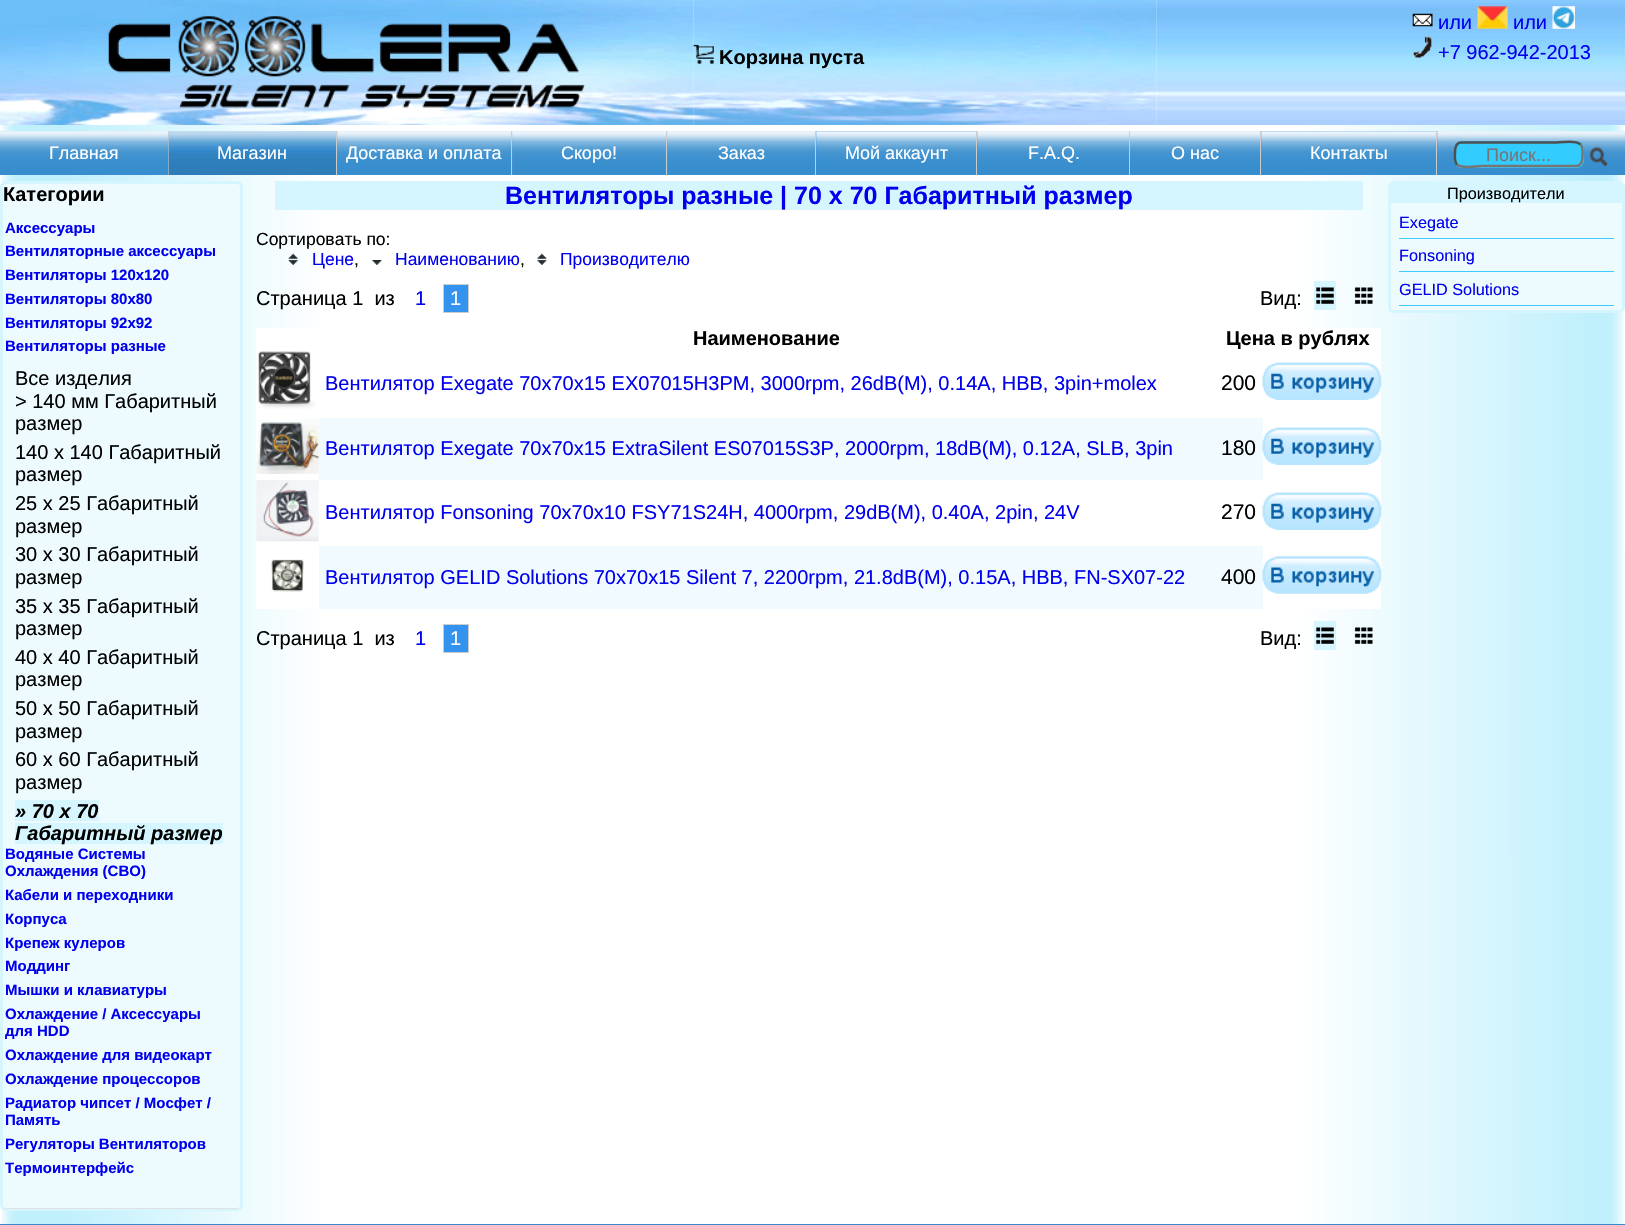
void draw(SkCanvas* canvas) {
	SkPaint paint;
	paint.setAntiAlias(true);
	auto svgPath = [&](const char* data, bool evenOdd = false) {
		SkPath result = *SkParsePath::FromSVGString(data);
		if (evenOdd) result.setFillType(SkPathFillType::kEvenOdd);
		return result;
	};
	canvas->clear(0xffffffff);
	{
		const SkColor colors[] = {0xffffffff, 0xffcaf2fc, 0xffcaf2fc, 0xfff2fcfe, 0xfffbfeff, 0xffffffff, 0xffffffff, 0xfffbfeff, 0xfff0fbfe, 0xffcaf2fc, 0xffcaf2fc, 0xffffffff};
		const float stops[] = {0, 0.01, 0.04, 0.16, 0.19, 0.2, 0.8, 0.81, 0.85, 0.98, 0.99, 1};
		const SkPoint ends[] = {{0, 613}, {1625, 612}};
		paint.setShader(SkGradientShader::MakeLinear(ends, colors, stops, 12, SkTileMode::kClamp));
		paint.setAlpha(255);
	}
	canvas->drawRect(SkRect::MakeXYWH(0, 125, 1625, 1099), paint);
	{
		const SkColor colors[] = {0x00bdeffb, 0xccbdeffb, 0xccbdeffb, 0xcceffbfe, 0xfffbfeff, 0xffffffff, 0xffffffff, 0xfffbfeff, 0xccecfafe, 0xccbdeffb, 0xccbdeffb, 0x00bdeffb};
		const float stops[] = {0, 0.01, 0.04, 0.16, 0.19, 0.2, 0.8, 0.81, 0.85, 0.98, 0.99, 1};
		const SkPoint ends[] = {{0, 669}, {1625, 669}};
		paint.setShader(SkGradientShader::MakeLinear(ends, colors, stops, 12, SkTileMode::kClamp));
		paint.setAlpha(255);
	}
	canvas->drawRect(SkRect::MakeXYWH(1, 0, 1623, 1224), paint);
	canvas->drawImageRect(SkImages::DeferredFromEncodedData(SkData::MakeFromFileName("img1.png")), SkRect::MakeXYWH(0, 0, 694, 125), SkSamplingOptions());
	canvas->drawImageRect(SkImages::DeferredFromEncodedData(SkData::MakeFromFileName("img4.png")), SkRect::MakeXYWH(1156, 0, 469, 125), SkSamplingOptions());
	canvas->drawImageRect(SkImages::DeferredFromEncodedData(SkData::MakeFromFileName("img2.png")), SkRect::MakeXYWH(693, 0, 464, 125), SkSamplingOptions());
	canvas->drawImageRect(SkImages::DeferredFromEncodedData(SkData::MakeFromFileName("img3.png")), SkRect::MakeXYWH(693, 44, 21, 20), SkSamplingOptions());
	SkFont f1(fontMgr->matchFamilyStyle("Liberation Sans", SkFontStyle::Bold()), 20);
	f1.setSubpixel(true);
	paint.setShader(nullptr);
	paint.setColor(0xff000000);
	canvas->drawString("Kорзина пуста", 719, 64, f1, paint);
	canvas->drawImageRect(SkImages::DeferredFromEncodedData(SkData::MakeFromFileName("img5.png")), SkRect::MakeXYWH(1412, 13, 21, 14), SkSamplingOptions());
	SkFont f2(fontMgr->matchFamilyStyle("Liberation Sans", SkFontStyle::Normal()), 20);
	f2.setSubpixel(true);
	paint.setColor(0xff0000ee);
	canvas->drawString("или", 1438, 29, f2, paint);
	canvas->drawImageRect(SkImages::DeferredFromEncodedData(SkData::MakeFromFileName("img6.png")), SkRect::MakeXYWH(1477, 6, 31, 23), SkSamplingOptions());
	canvas->drawString("или", 1513, 29, f2, paint);
	canvas->drawImageRect(SkImages::DeferredFromEncodedData(SkData::MakeFromFileName("img7.png")), SkRect::MakeXYWH(1552, 6, 23, 23), SkSamplingOptions());
	canvas->drawImageRect(SkImages::DeferredFromEncodedData(SkData::MakeFromFileName("img8.png")), SkRect::MakeXYWH(1413, 36, 19, 22), SkSamplingOptions());
	canvas->drawString("+7 962-942-2013", 1438, 59, f2, paint);
	canvas->drawImageRect(SkImages::DeferredFromEncodedData(SkData::MakeFromFileName("img9.png")), SkRect::MakeXYWH(0, 131, 168, 1), SkSamplingOptions());
	canvas->drawImageRect(SkImages::DeferredFromEncodedData(SkData::MakeFromFileName("img10.png")), SkRect::MakeXYWH(0, 131, 168, 44), SkSamplingOptions());
	paint.setColor(0xffcccccc);
	canvas->drawRect(SkRect::MakeXYWH(168, 131, 1, 44), paint);
	SkFont f3(fontMgr->matchFamilyStyle("Liberation Sans", SkFontStyle::Normal()), 18);
	f3.setSubpixel(true);
	paint.setColor(0xffffffff);
	canvas->drawString("Главная", 49, 159, f3, paint);
	canvas->drawImageRect(SkImages::DeferredFromEncodedData(SkData::MakeFromFileName("img11.png")), SkRect::MakeXYWH(168, 131, 170, 44), SkSamplingOptions());
	canvas->drawImageRect(SkImages::DeferredFromEncodedData(SkData::MakeFromFileName("img12.png")), SkRect::MakeXYWH(168, 131, 170, 44), SkSamplingOptions());
	paint.setColor(0xffcccccc);
	canvas->drawRect(SkRect::MakeXYWH(336, 131, 1, 44), paint);
	paint.setColor(0xffffffff);
	canvas->drawString("Магазин", 217, 159, f3, paint);
	canvas->drawImageRect(SkImages::DeferredFromEncodedData(SkData::MakeFromFileName("img13.png")), SkRect::MakeXYWH(337, 131, 176, 44), SkSamplingOptions());
	canvas->drawImageRect(SkImages::DeferredFromEncodedData(SkData::MakeFromFileName("img14.png")), SkRect::MakeXYWH(337, 131, 176, 44), SkSamplingOptions());
	paint.setColor(0xffcccccc);
	canvas->drawRect(SkRect::MakeXYWH(511, 131, 1, 44), paint);
	paint.setColor(0xffffffff);
	canvas->drawString("Доставка и оплата", 346, 159, f3, paint);
	canvas->drawImageRect(SkImages::DeferredFromEncodedData(SkData::MakeFromFileName("img15.png")), SkRect::MakeXYWH(512, 131, 156, 44), SkSamplingOptions());
	canvas->drawImageRect(SkImages::DeferredFromEncodedData(SkData::MakeFromFileName("img16.png")), SkRect::MakeXYWH(512, 131, 156, 44), SkSamplingOptions());
	paint.setColor(0xffcccccc);
	canvas->drawRect(SkRect::MakeXYWH(666, 131, 1, 44), paint);
	paint.setColor(0xffffffff);
	canvas->drawString("Скоро!", 561, 159, f3, paint);
	canvas->drawImageRect(SkImages::DeferredFromEncodedData(SkData::MakeFromFileName("img17.png")), SkRect::MakeXYWH(667, 131, 148, 44), SkSamplingOptions());
	canvas->drawImageRect(SkImages::DeferredFromEncodedData(SkData::MakeFromFileName("img18.png")), SkRect::MakeXYWH(667, 131, 148, 44), SkSamplingOptions());
	paint.setColor(0xffcccccc);
	canvas->drawRect(SkRect::MakeXYWH(815, 131, 1, 44), paint);
	paint.setColor(0xffffffff);
	canvas->drawString("Заказ", 718, 159, f3, paint);
	paint.setColor(0xff3393ee);
	canvas->drawRect(SkRect::MakeXYWH(816, 131, 162, 44), paint);
	canvas->drawImageRect(SkImages::DeferredFromEncodedData(SkData::MakeFromFileName("img19.png")), SkRect::MakeXYWH(816, 131, 162, 44), SkSamplingOptions());
	paint.setColor(0xffcccccc);
	canvas->drawRect(SkRect::MakeXYWH(976, 131, 1, 44), paint);
	paint.setColor(0xffffffff);
	canvas->drawString("Мой аккаунт", 845, 159, f3, paint);
	canvas->drawImageRect(SkImages::DeferredFromEncodedData(SkData::MakeFromFileName("img20.png")), SkRect::MakeXYWH(977, 131, 152, 44), SkSamplingOptions());
	canvas->drawImageRect(SkImages::DeferredFromEncodedData(SkData::MakeFromFileName("img21.png")), SkRect::MakeXYWH(977, 131, 152, 44), SkSamplingOptions());
	paint.setColor(0xffcccccc);
	canvas->drawRect(SkRect::MakeXYWH(1129, 131, 1, 44), paint);
	paint.setColor(0xffffffff);
	canvas->drawString("F.A.Q.", 1028, 159, f3, paint);
	canvas->drawImageRect(SkImages::DeferredFromEncodedData(SkData::MakeFromFileName("img22.png")), SkRect::MakeXYWH(1130, 131, 130, 1), SkSamplingOptions());
	canvas->drawImageRect(SkImages::DeferredFromEncodedData(SkData::MakeFromFileName("img23.png")), SkRect::MakeXYWH(1130, 131, 130, 44), SkSamplingOptions());
	paint.setColor(0xffcccccc);
	canvas->drawRect(SkRect::MakeXYWH(1260, 131, 1, 44), paint);
	paint.setColor(0xffffffff);
	canvas->drawString("О нас", 1171, 159, f3, paint);
	paint.setColor(0xff3393ee);
	canvas->drawRect(SkRect::MakeXYWH(1261, 131, 177, 44), paint);
	canvas->drawImageRect(SkImages::DeferredFromEncodedData(SkData::MakeFromFileName("img24.png")), SkRect::MakeXYWH(1261, 131, 177, 44), SkSamplingOptions());
	paint.setColor(0xffcccccc);
	canvas->drawRect(SkRect::MakeXYWH(1436, 131, 1, 44), paint);
	paint.setColor(0xffffffff);
	canvas->drawString("Контакты", 1310, 159, f3, paint);
	canvas->drawImageRect(SkImages::DeferredFromEncodedData(SkData::MakeFromFileName("img25.png")), SkRect::MakeXYWH(1437, 131, 188, 44), SkSamplingOptions());
	canvas->drawImageRect(SkImages::DeferredFromEncodedData(SkData::MakeFromFileName("img26.png")), SkRect::MakeXYWH(1437, 131, 188, 44), SkSamplingOptions());
	paint.setColor(0xff33ccff);
	canvas->drawRoundRect(SkRect::MakeXYWH(1454, 141, 130, 27), 8, 8, paint);
	paint.setStroke(true);
	paint.setStrokeWidth(2.5);
	paint.setColor(0xff767676);
	canvas->drawPath(svgPath("M1580.5 144.5C1583.5 147.5 1582.5 152.5 1582.5 156C1582.5 160.5 1582 166 1576 166H1480.5C1479 166 1461.5 169 1457 164.5"), paint);
	paint.setColor(0xff4f4f4f);
	canvas->drawPath(svgPath("M1457 164.5C1454 161.5 1455 156 1455 152.5C1455 148 1455.5 142.5 1461 142.5H1557C1558.5 142.5 1576 139.5 1580.5 144.5"), paint);
	paint.setStroke(false);
	paint.setColor(0xff757575);
	canvas->drawString("Поиск...", 1486, 161, f3, paint);
	canvas->drawImageRect(SkImages::DeferredFromEncodedData(SkData::MakeFromFileName("img27.png")), SkRect::MakeXYWH(1589, 146, 19, 21), SkSamplingOptions());
	paint.setColor(0xffeefbfe);
	canvas->drawRoundRect(SkRect::MakeXYWH(1.5, 182.5, 240, 1027), 4.5, 4.5, paint);
	paint.setStroke(true);
	paint.setStrokeWidth(3);
	paint.setColor(0xffd5f6fe);
	canvas->drawRoundRect(SkRect::MakeXYWH(1.5, 182.5, 240, 1027), 4.5, 4.5, paint);
	paint.setStroke(false);
	paint.setColor(0xff000000);
	canvas->drawString("Категории", 3, 201, f1, paint);
	canvas->save();
	canvas->clipPath(svgPath("M7 184H236C238 184 240 186 240 188V1205C240 1207 238 1209 236 1209H7C5 1209 3 1207 3 1205V188C3 186 5 184 7 184Z"), true);
	paint.setColor(0xffe1e1e1);
	canvas->drawRect(SkRect::MakeXYWH(3, 1208, 237, 1), paint);
	canvas->restore();
	SkFont f4(fontMgr->matchFamilyStyle("Liberation Sans", SkFontStyle::Bold()), 15);
	f4.setSubpixel(true);
	paint.setColor(0xff0000ee);
	canvas->drawString("Аксессуары", 5, 233, f4, paint);
	canvas->drawString("Вентиляторные аксессуары", 5, 256, f4, paint);
	canvas->drawString("Вентиляторы 120х120", 5, 280, f4, paint);
	canvas->drawString("Вентиляторы 80х80", 5, 304, f4, paint);
	canvas->drawString("Вентиляторы 92х92", 5, 328, f4, paint);
	canvas->drawString("Вентиляторы разные", 5, 351, f4, paint);
	paint.setColor(0xff000000);
	canvas->drawString("Все изделия", 15, 385, f2, paint);
	canvas->drawString("> 140 мм Габаритный", 15, 408, f2, paint);
	canvas->drawString("размер", 15, 430, f2, paint);
	canvas->drawString("140 x 140 Габаритный", 15, 459, f2, paint);
	canvas->drawString("размер", 15, 481, f2, paint);
	canvas->drawString("25 x 25 Габаритный", 15, 510, f2, paint);
	canvas->drawString("размер", 15, 533, f2, paint);
	canvas->drawString("30 x 30 Габаритный", 15, 561, f2, paint);
	canvas->drawString("размер", 15, 584, f2, paint);
	canvas->drawString("35 x 35 Габаритный", 15, 613, f2, paint);
	canvas->drawString("размер", 15, 635, f2, paint);
	canvas->drawString("40 x 40 Габаритный", 15, 664, f2, paint);
	canvas->drawString("размер", 15, 686, f2, paint);
	canvas->drawString("50 x 50 Габаритный", 15, 715, f2, paint);
	canvas->drawString("размер", 15, 738, f2, paint);
	canvas->drawString("60 x 60 Габаритный", 15, 766, f2, paint);
	canvas->drawString("размер", 15, 789, f2, paint);
	paint.setColor(0xffd5f6fe);
	canvas->drawRect(SkRect::MakeXYWH(15, 800, 84, 21), paint);
	SkFont f5(fontMgr->matchFamilyStyle("Liberation Sans", SkFontStyle::BoldItalic()), 20);
	f5.setSubpixel(true);
	paint.setColor(0xff000000);
	canvas->drawString("» 70 x 70", 15, 818, f5, paint);
	paint.setColor(0xffd5f6fe);
	canvas->drawRect(SkRect::MakeXYWH(15, 823, 208, 21), paint);
	paint.setColor(0xff000000);
	canvas->drawString("Габаритный размер", 15, 840, f5, paint);
	paint.setColor(0xff0000ee);
	canvas->drawString("Водяные Системы", 5, 859, f4, paint);
	canvas->drawString("Охлаждения (СВО)", 5, 876, f4, paint);
	canvas->drawString("Кабели и переходники", 5, 900, f4, paint);
	canvas->drawString("Корпуса", 5, 924, f4, paint);
	canvas->drawString("Крепеж кулеров", 5, 948, f4, paint);
	canvas->drawString("Моддинг", 5, 971, f4, paint);
	canvas->drawString("Мышки и клавиатуры", 5, 995, f4, paint);
	canvas->drawString("Охлаждение / Аксессуары", 5, 1019, f4, paint);
	canvas->drawString("для HDD", 5, 1036, f4, paint);
	canvas->drawString("Охлаждение для видеокарт", 5, 1060, f4, paint);
	canvas->drawString("Охлаждение процессоров", 5, 1084, f4, paint);
	canvas->drawString("Радиатор чипсет / Мосфет /", 5, 1108, f4, paint);
	canvas->drawString("Память", 5, 1125, f4, paint);
	canvas->drawString("Регуляторы Вентиляторов", 5, 1149, f4, paint);
	canvas->drawString("Термоинтерфейс", 5, 1173, f4, paint);
	paint.setColor(0xffd5f6fe);
	canvas->drawRect(SkRect::MakeXYWH(275, 181, 1088, 29), paint);
	SkFont f6(fontMgr->matchFamilyStyle("Liberation Sans", SkFontStyle::Bold()), 25);
	f6.setSubpixel(true);
	paint.setColor(0xff0000ee);
	canvas->drawString("Вентиляторы разные | 70 x 70 Габаритный размер", 505, 204, f6, paint);
	SkFont f7(fontMgr->matchFamilyStyle("Liberation Sans", SkFontStyle::Normal()), 17.5);
	f7.setSubpixel(true);
	paint.setColor(0xff000000);
	canvas->drawString("Сортировать по:", 256, 245, f7, paint);
	canvas->drawImageRect(SkImages::DeferredFromEncodedData(SkData::MakeFromFileName("img28.png")), SkRect::MakeXYWH(288, 253, 10, 12), SkSamplingOptions());
	paint.setColor(0xff0000ee);
	canvas->drawString("Цене", 312, 265, f7, paint);
	canvas->drawImageRect(SkImages::DeferredFromEncodedData(SkData::MakeFromFileName("img29.png")), SkRect::MakeXYWH(372, 260, 10, 5), SkSamplingOptions());
	canvas->drawString("Наименованию", 395, 265, f7, paint);
	canvas->drawImageRect(SkImages::DeferredFromEncodedData(SkData::MakeFromFileName("img30.png")), SkRect::MakeXYWH(537, 253, 10, 12), SkSamplingOptions());
	canvas->drawString("Производителю", 560, 265, f7, paint);
	paint.setColor(0xff000000);
	canvas->drawString(",", 354, 265, f7, paint);
	canvas->drawString(",", 520, 265, f7, paint);
	canvas->drawString("Страница 1  из", 256, 305, f2, paint);
	paint.setColor(0xff0000ee);
	canvas->drawString("1", 415, 305, f2, paint);
	paint.setColor(0xff3393ee);
	canvas->drawRect(SkRect::MakeXYWH(443.5, 284.5, 25, 28), paint);
	paint.setStroke(true);
	paint.setStrokeWidth(1);
	paint.setColor(0xffcccccc);
	canvas->drawRect(SkRect::MakeXYWH(443.5, 284.5, 25, 28), paint);
	paint.setStroke(false);
	paint.setColor(0xffffffff);
	canvas->drawString("1", 450, 305, f2, paint);
	paint.setColor(0xffd5f6fe);
	canvas->drawRect(SkRect::MakeXYWH(1314, 281, 22, 29), paint);
	paint.setColor(0xff000000);
	canvas->drawString("Вид:", 1260, 305, f2, paint);
	canvas->drawImageRect(SkImages::DeferredFromEncodedData(SkData::MakeFromFileName("img31.png")), SkRect::MakeXYWH(1316, 286, 18, 18), SkSamplingOptions());
	canvas->drawImageRect(SkImages::DeferredFromEncodedData(SkData::MakeFromFileName("img32.png")), SkRect::MakeXYWH(1354, 287, 19, 17), SkSamplingOptions());
	paint.setColor(0xffffffff);
	canvas->drawRect(SkRect::MakeXYWH(256, 328, 1125, 281), paint);
	paint.setColor(0xff000000);
	canvas->drawString("Наименование", 693, 345, f1, paint);
	canvas->drawString("Цена в рублях", 1226, 345, f1, paint);
	canvas->drawImageRect(SkImages::DeferredFromEncodedData(SkData::MakeFromFileName("img33.png")), SkRect::MakeXYWH(258, 351, 58, 58), SkSamplingOptions());
	paint.setColor(0xff0000ee);
	canvas->drawString("Вентилятор Exegate 70x70x15 EX07015H3PM, 3000rpm, 26dB(M), 0.14A, HBB, 3pin+molex", 325, 390, f2, paint);
	SkFont f8(fontMgr->matchFamilyStyle("Liberation Sans", SkFontStyle::Normal()), 21);
	f8.setSubpixel(true);
	paint.setColor(0xff000000);
	canvas->drawString("200", 1221, 390, f8, paint);
	canvas->drawImageRect(SkImages::DeferredFromEncodedData(SkData::MakeFromFileName("img34.png")), SkRect::MakeXYWH(1262, 362, 120, 38), SkSamplingOptions());
	canvas->drawImageRect(SkImages::DeferredFromEncodedData(SkData::MakeFromFileName("img35.png")), SkRect::MakeXYWH(256, 419, 63, 55), SkSamplingOptions());
	paint.setColor(0xfff1faff);
	canvas->drawRect(SkRect::MakeXYWH(319, 418, 944, 62), paint);
	paint.setColor(0xff0000ee);
	canvas->drawString("Вентилятор Exegate 70x70x15 ExtraSilent ES07015S3P, 2000rpm, 18dB(M), 0.12A, SLB, 3pin", 325, 455, f2, paint);
	paint.setColor(0xff000000);
	canvas->drawString("180", 1221, 455, f8, paint);
	canvas->drawImageRect(SkImages::DeferredFromEncodedData(SkData::MakeFromFileName("img36.png")), SkRect::MakeXYWH(1262, 427, 120, 38), SkSamplingOptions());
	canvas->drawImageRect(SkImages::DeferredFromEncodedData(SkData::MakeFromFileName("img37.png")), SkRect::MakeXYWH(256, 480, 63, 62), SkSamplingOptions());
	paint.setColor(0xff0000ee);
	canvas->drawString("Вентилятор Fonsoning 70x70x10 FSY71S24H, 4000rpm, 29dB(M), 0.40A, 2pin, 24V", 325, 519, f2, paint);
	paint.setColor(0xff000000);
	canvas->drawString("270", 1221, 519, f8, paint);
	canvas->drawImageRect(SkImages::DeferredFromEncodedData(SkData::MakeFromFileName("img34.png")), SkRect::MakeXYWH(1262, 492, 120, 38), SkSamplingOptions());
	canvas->drawImageRect(SkImages::DeferredFromEncodedData(SkData::MakeFromFileName("img38.png")), SkRect::MakeXYWH(271, 559, 33, 33), SkSamplingOptions());
	paint.setColor(0xfff1faff);
	canvas->drawRect(SkRect::MakeXYWH(319, 546, 944, 63), paint);
	paint.setColor(0xff0000ee);
	canvas->drawString("Вентилятор GELID Solutions 70x70x15 Silent 7, 2200rpm, 21.8dB(M), 0.15A, HBB, FN-SX07-22", 325, 584, f2, paint);
	paint.setColor(0xff000000);
	canvas->drawString("400", 1221, 584, f8, paint);
	canvas->drawImageRect(SkImages::DeferredFromEncodedData(SkData::MakeFromFileName("img39.png")), SkRect::MakeXYWH(1262, 556, 120, 38), SkSamplingOptions());
	canvas->drawString("Страница 1  из", 256, 645, f2, paint);
	paint.setColor(0xff0000ee);
	canvas->drawString("1", 415, 645, f2, paint);
	paint.setColor(0xff3393ee);
	canvas->drawRect(SkRect::MakeXYWH(443.5, 624.5, 25, 28), paint);
	paint.setStroke(true);
	paint.setColor(0xffcccccc);
	canvas->drawRect(SkRect::MakeXYWH(443.5, 624.5, 25, 28), paint);
	paint.setStroke(false);
	paint.setColor(0xffffffff);
	canvas->drawString("1", 450, 645, f2, paint);
	paint.setColor(0xffd5f6fe);
	canvas->drawRect(SkRect::MakeXYWH(1314, 621, 22, 29), paint);
	paint.setColor(0xff000000);
	canvas->drawString("Вид:", 1260, 645, f2, paint);
	canvas->drawImageRect(SkImages::DeferredFromEncodedData(SkData::MakeFromFileName("img40.png")), SkRect::MakeXYWH(1316, 626, 18, 18), SkSamplingOptions());
	canvas->drawImageRect(SkImages::DeferredFromEncodedData(SkData::MakeFromFileName("img41.png")), SkRect::MakeXYWH(1354, 627, 19, 17), SkSamplingOptions());
	paint.setColor(0xffeefbfe);
	canvas->drawRoundRect(SkRect::MakeXYWH(1389.5, 182.5, 234, 129), 4.5, 4.5, paint);
	paint.setStroke(true);
	paint.setStrokeWidth(3);
	paint.setColor(0xffd5f6fe);
	canvas->drawRoundRect(SkRect::MakeXYWH(1389.5, 182.5, 234, 129), 4.5, 4.5, paint);
	paint.setStroke(false);
	canvas->drawRect(SkRect::MakeXYWH(1391, 184, 231, 19), paint);
	SkFont f9(fontMgr->matchFamilyStyle("Liberation Sans", SkFontStyle::Normal()), 16.25);
	f9.setSubpixel(true);
	paint.setColor(0xff000000);
	canvas->drawString("Производители", 1447, 199, f9, paint);
	paint.setColor(0xff3ecbfe);
	canvas->drawRect(SkRect::MakeXYWH(1399, 238, 215, 1), paint);
	paint.setColor(0xff0000ee);
	canvas->drawString("Exegate", 1399, 228, f9, paint);
	paint.setColor(0xff3ecbfe);
	canvas->drawRect(SkRect::MakeXYWH(1399, 271, 215, 1), paint);
	paint.setColor(0xff0000ee);
	canvas->drawString("Fonsoning", 1399, 261, f9, paint);
	paint.setColor(0xff3ecbfe);
	canvas->drawRect(SkRect::MakeXYWH(1399, 305, 215, 1), paint);
	paint.setColor(0xff0000ee);
	canvas->drawString("GELID Solutions", 1399, 295, f9, paint);
	paint.setColor(0xff378dcd);
	canvas->drawRect(SkRect::MakeXYWH(0, 1224, 1625, 1), paint);
}
